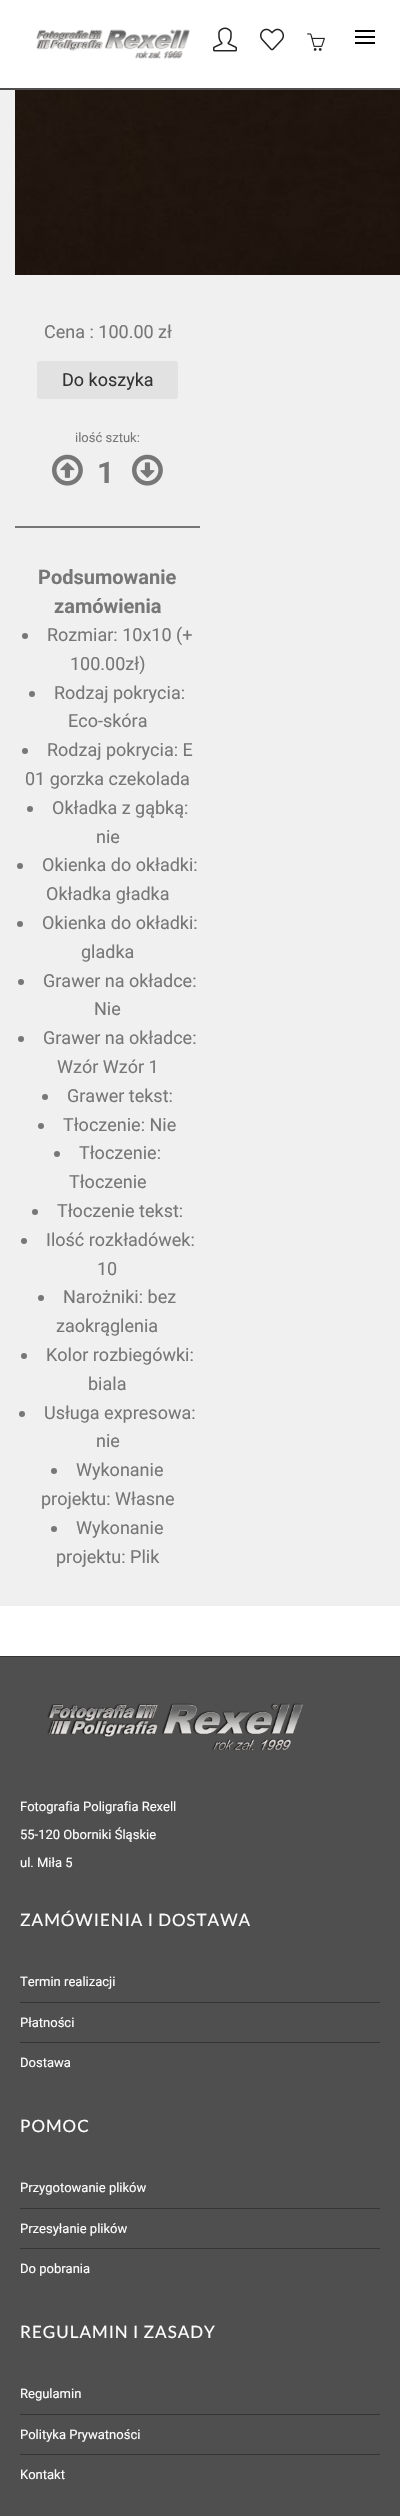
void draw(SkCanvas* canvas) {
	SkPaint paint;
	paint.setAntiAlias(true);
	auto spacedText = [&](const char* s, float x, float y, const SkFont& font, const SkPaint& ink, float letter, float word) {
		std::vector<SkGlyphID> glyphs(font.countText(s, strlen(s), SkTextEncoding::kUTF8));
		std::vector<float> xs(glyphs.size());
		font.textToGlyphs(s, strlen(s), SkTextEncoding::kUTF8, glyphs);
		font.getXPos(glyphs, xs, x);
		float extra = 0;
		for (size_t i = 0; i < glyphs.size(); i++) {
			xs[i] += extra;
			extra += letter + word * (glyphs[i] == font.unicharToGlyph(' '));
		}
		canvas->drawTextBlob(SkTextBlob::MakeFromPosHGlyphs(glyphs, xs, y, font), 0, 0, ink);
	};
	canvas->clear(0xffffffff);
	paint.setColor(0xff4f4f4f);
	canvas->drawRect(SkRect::MakeXYWH(0, 88, 400, 2), paint);
	canvas->drawImageRect(SkImages::DeferredFromEncodedData(SkData::MakeFromFileName("img1.png")), SkRect::MakeXYWH(36, 29, 154, 30), SkSamplingOptions());
	canvas->drawImageRect(SkImages::DeferredFromEncodedData(SkData::MakeFromFileName("img2.png")), SkRect::MakeXYWH(213, 27, 24, 25), SkSamplingOptions());
	canvas->drawImageRect(SkImages::DeferredFromEncodedData(SkData::MakeFromFileName("img3.png")), SkRect::MakeXYWH(260, 28, 24, 23), SkSamplingOptions());
	canvas->drawImageRect(SkImages::DeferredFromEncodedData(SkData::MakeFromFileName("img4.png")), SkRect::MakeXYWH(307, 33, 18, 18), SkSamplingOptions());
	paint.setColor(0xff000000);
	canvas->drawRect(SkRect::MakeXYWH(355, 36, 20, 2), paint);
	canvas->drawRect(SkRect::MakeXYWH(355, 30, 20, 2), paint);
	canvas->drawRect(SkRect::MakeXYWH(355, 42, 20, 2), paint);
	paint.setColor(0xfff0f0f0);
	canvas->drawRect(SkRect::MakeXYWH(0, 90, 400, 1516), paint);
	canvas->drawImageRect(SkImages::DeferredFromEncodedData(SkData::MakeFromFileName("img5.png")), SkRect::MakeXYWH(15, 90, 385, 185), SkSamplingOptions());
	SkFont f1(fontMgr->matchFamilyStyle("Roboto", SkFontStyle::Normal()), 18);
	f1.setSubpixel(true);
	paint.setColor(0xff777777);
	canvas->drawString("Cena : 100.00 zł", 44, 338, f1, paint);
	paint.setColor(0xffe2e2e2);
	canvas->drawRoundRect(SkRect::MakeXYWH(37, 361, 141, 38), 3, 3, paint);
	paint.setColor(0xff333333);
	canvas->drawString("Do koszyka", 62, 386, f1, paint);
	SkFont f2(fontMgr->matchFamilyStyle("Roboto", SkFontStyle::Normal()), 13);
	f2.setSubpixel(true);
	paint.setColor(0xff777777);
	canvas->drawString("ilość sztuk:", 75, 442, f2, paint);
	canvas->drawImageRect(SkImages::DeferredFromEncodedData(SkData::MakeFromFileName("img6.png")), SkRect::MakeXYWH(52, 454, 31, 32), SkSamplingOptions());
	SkFont f3(fontMgr->matchFamilyStyle("Roboto", SkFontStyle::Bold()), 30);
	f3.setSubpixel(true);
	canvas->drawString("1", 97, 483, f3, paint);
	canvas->drawImageRect(SkImages::DeferredFromEncodedData(SkData::MakeFromFileName("img7.png")), SkRect::MakeXYWH(132, 454, 31, 32), SkSamplingOptions());
	canvas->drawRect(SkRect::MakeXYWH(15, 526, 185, 2), paint);
	SkFont f4(fontMgr->matchFamilyStyle("Roboto", SkFontStyle::Bold()), 20);
	f4.setSubpixel(true);
	canvas->drawString("Podsumowanie", 38, 584, f4, paint);
	canvas->drawString("zamówienia", 54, 613, f4, paint);
	canvas->drawCircle(25, 636, 3, paint);
	canvas->drawString("Rozmiar: 10x10 (+", 47, 641, f1, paint);
	canvas->drawString("100.00zł)", 70, 670, f1, paint);
	canvas->drawCircle(32, 694, 3, paint);
	canvas->drawString("Rodzaj pokrycia:", 54, 699, f1, paint);
	canvas->drawString("Eco-skóra", 68, 727, f1, paint);
	canvas->drawCircle(25, 751, 3, paint);
	canvas->drawString("Rodzaj pokrycia: E", 47, 756, f1, paint);
	canvas->drawString("01 gorzka czekolada", 25, 785, f1, paint);
	canvas->drawCircle(30, 809, 3, paint);
	canvas->drawString("Okładka z gąbką:", 52, 814, f1, paint);
	canvas->drawString("nie", 96, 843, f1, paint);
	canvas->drawCircle(20, 866, 3, paint);
	canvas->drawString("Okienka do okładki:", 42, 871, f1, paint);
	canvas->drawString("Okładka gładka", 46, 900, f1, paint);
	canvas->drawCircle(20, 924, 3, paint);
	canvas->drawString("Okienka do okładki:", 42, 929, f1, paint);
	canvas->drawString("gladka", 81, 958, f1, paint);
	canvas->drawCircle(21, 982, 3, paint);
	canvas->drawString("Grawer na okładce:", 43, 987, f1, paint);
	canvas->drawString("Nie", 94, 1015, f1, paint);
	canvas->drawCircle(21, 1039, 3, paint);
	canvas->drawString("Grawer na okładce:", 43, 1044, f1, paint);
	canvas->drawString("Wzór Wzór 1", 57, 1073, f1, paint);
	canvas->drawCircle(45, 1097, 3, paint);
	canvas->drawString("Grawer tekst:", 67, 1102, f1, paint);
	canvas->drawCircle(41, 1126, 3, paint);
	canvas->drawString("Tłoczenie: Nie", 63, 1131, f1, paint);
	canvas->drawCircle(57, 1154, 3, paint);
	canvas->drawString("Tłoczenie:", 79, 1159, f1, paint);
	canvas->drawString("Tłoczenie", 69, 1188, f1, paint);
	canvas->drawCircle(35, 1212, 3, paint);
	canvas->drawString("Tłoczenie tekst:", 57, 1217, f1, paint);
	canvas->drawCircle(24, 1241, 3, paint);
	canvas->drawString("Ilość rozkładówek:", 46, 1246, f1, paint);
	canvas->drawString("10", 97, 1275, f1, paint);
	canvas->drawCircle(41, 1298, 3, paint);
	canvas->drawString("Narożniki: bez", 63, 1303, f1, paint);
	canvas->drawString("zaokrąglenia", 56, 1332, f1, paint);
	canvas->drawCircle(24, 1356, 3, paint);
	canvas->drawString("Kolor rozbiegówki:", 46, 1361, f1, paint);
	canvas->drawString("biala", 88, 1390, f1, paint);
	canvas->drawCircle(22, 1414, 3, paint);
	canvas->drawString("Usługa expresowa:", 44, 1419, f1, paint);
	canvas->drawString("nie", 96, 1447, f1, paint);
	canvas->drawCircle(54, 1471, 3, paint);
	canvas->drawString("Wykonanie", 76, 1476, f1, paint);
	canvas->drawString("projektu: Własne", 41, 1505, f1, paint);
	canvas->drawCircle(54, 1529, 3, paint);
	canvas->drawString("Wykonanie", 76, 1534, f1, paint);
	canvas->drawString("projektu: Plik", 56, 1563, f1, paint);
	paint.setColor(0xff4f4f4f);
	canvas->drawRect(SkRect::MakeXYWH(0, 1657, 400, 859), paint);
	paint.setColor(0xff353535);
	canvas->drawRect(SkRect::MakeXYWH(0, 1656, 400, 1), paint);
	canvas->drawImageRect(SkImages::DeferredFromEncodedData(SkData::MakeFromFileName("img8.png")), SkRect::MakeXYWH(47, 1703, 256, 48), SkSamplingOptions());
	paint.setColor(0xffffffff);
	canvas->drawString("Fotografia Poligrafia Rexell", 20, 1811, f2, paint);
	canvas->drawString("55-120 Oborniki Śląskie", 20, 1839, f2, paint);
	canvas->drawString("ul. Miła 5", 20, 1867, f2, paint);
	SkFont f5(fontMgr->matchFamilyStyle("Lato", SkFontStyle::Normal()), 17);
	f5.setSubpixel(true);
	spacedText("ZAMÓWIENIA I DOSTAWA", 20, 1926, f5, paint, 1, 0);
	canvas->drawString("Termin realizacji", 20, 1986, f2, paint);
	paint.setColor(0xff353535);
	canvas->drawRect(SkRect::MakeXYWH(20, 2002, 360, 1), paint);
	paint.setColor(0xffffffff);
	canvas->drawString("Płatności", 20, 2027, f2, paint);
	paint.setColor(0xff353535);
	canvas->drawRect(SkRect::MakeXYWH(20, 2042, 360, 1), paint);
	paint.setColor(0xffffffff);
	canvas->drawString("Dostawa", 20, 2067, f2, paint);
	spacedText("POMOC", 20, 2132, f5, paint, 1, 0);
	canvas->drawString("Przygotowanie plików", 20, 2192, f2, paint);
	paint.setColor(0xff353535);
	canvas->drawRect(SkRect::MakeXYWH(20, 2208, 360, 1), paint);
	paint.setColor(0xffffffff);
	canvas->drawString("Przesyłanie plików", 20, 2233, f2, paint);
	paint.setColor(0xff353535);
	canvas->drawRect(SkRect::MakeXYWH(20, 2248, 360, 1), paint);
	paint.setColor(0xffffffff);
	canvas->drawString("Do pobrania", 20, 2273, f2, paint);
	spacedText("REGULAMIN I ZASADY", 20, 2338, f5, paint, 1, 0);
	canvas->drawString("Regulamin", 20, 2398, f2, paint);
	paint.setColor(0xff353535);
	canvas->drawRect(SkRect::MakeXYWH(20, 2414, 360, 1), paint);
	paint.setColor(0xffffffff);
	canvas->drawString("Polityka Prywatności", 20, 2439, f2, paint);
	paint.setColor(0xff353535);
	canvas->drawRect(SkRect::MakeXYWH(20, 2454, 360, 1), paint);
	paint.setColor(0xffffffff);
	canvas->drawString("Kontakt", 20, 2479, f2, paint);
}
